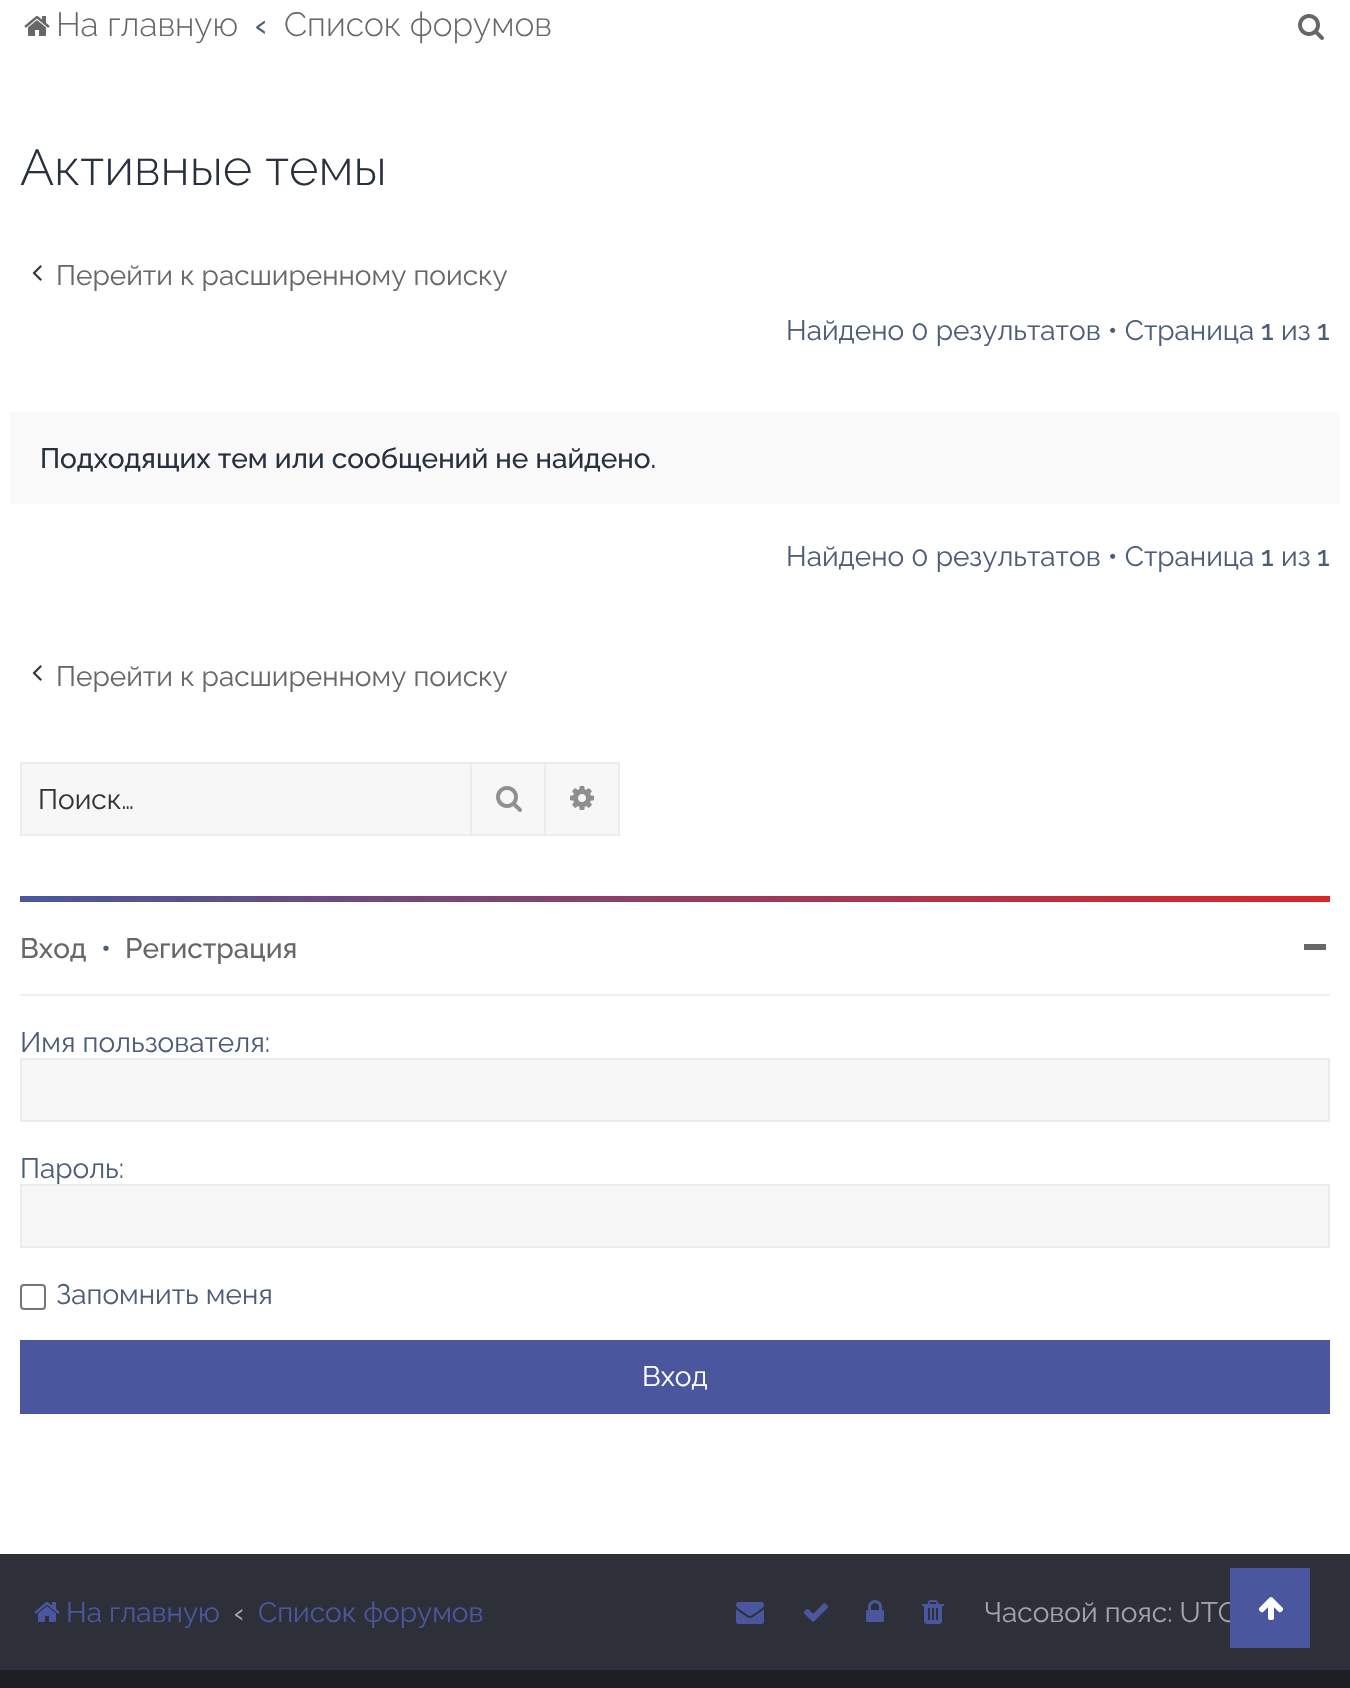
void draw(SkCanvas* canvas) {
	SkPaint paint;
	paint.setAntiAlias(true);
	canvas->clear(0xff2d3039);
	paint.setColor(0xffffffff);
	canvas->drawRect(SkRect::MakeXYWH(0, 0, 1350, 1554), paint);
	canvas->drawImageRect(SkImages::DeferredFromEncodedData(SkData::MakeFromFileName("img1.png")), SkRect::MakeXYWH(24, 16, 26, 20), SkSamplingOptions());
	SkFont f1(fontMgr->matchFamilyStyle("Raleway", SkFontStyle(300, SkFontStyle::kNormal_Width, SkFontStyle::kUpright_Slant)), 33.5);
	f1.setSubpixel(true);
	paint.setColor(0xff676767);
	canvas->drawString("На главную", 56, 36, f1, paint);
	SkFont f2(fontMgr->matchFamilyStyle("Raleway", SkFontStyle(500, SkFontStyle::kNormal_Width, SkFontStyle::kUpright_Slant)), 33.5);
	f2.setSubpixel(true);
	paint.setColor(0xff4c5d77);
	canvas->drawString("‹", 255, 36, f2, paint);
	paint.setColor(0xff676767);
	canvas->drawString("Список форумов", 284, 36, f1, paint);
	canvas->drawImageRect(SkImages::DeferredFromEncodedData(SkData::MakeFromFileName("img2.png")), SkRect::MakeXYWH(1298, 14, 26, 26), SkSamplingOptions());
	SkFont f3(fontMgr->matchFamilyStyle("Raleway", SkFontStyle(300, SkFontStyle::kNormal_Width, SkFontStyle::kUpright_Slant)), 50.5);
	f3.setSubpixel(true);
	paint.setColor(0xff28313f);
	canvas->drawString("Активные темы", 20, 185, f3, paint);
	canvas->drawImageRect(SkImages::DeferredFromEncodedData(SkData::MakeFromFileName("img3.png")), SkRect::MakeXYWH(32, 265, 10, 16), SkSamplingOptions());
	SkFont f4(fontMgr->matchFamilyStyle("Raleway", SkFontStyle::Normal()), 28);
	f4.setSubpixel(true);
	paint.setColor(0xff676767);
	canvas->drawString("Перейти к расширенному поиску", 56, 285, f4, paint);
	paint.setColor(0xff4c5d77);
	canvas->drawString("Найдено 0 результатов • Страница", 786, 340, f4, paint);
	SkFont f5(fontMgr->matchFamilyStyle("Raleway", SkFontStyle(500, SkFontStyle::kNormal_Width, SkFontStyle::kUpright_Slant)), 28);
	f5.setSubpixel(true);
	canvas->drawString("1", 1261, 340, f5, paint);
	canvas->drawString("из", 1281, 340, f4, paint);
	canvas->drawString("1", 1317, 340, f5, paint);
	paint.setColor(0xfff9f9f9);
	canvas->drawRect(SkRect::MakeXYWH(10, 412, 1330, 92), paint);
	paint.setColor(0xff28313f);
	canvas->drawString("Подходящих тем или сообщений не найдено.", 40, 468, f5, paint);
	paint.setColor(0xff4c5d77);
	canvas->drawString("Найдено 0 результатов • Страница", 786, 566, f4, paint);
	canvas->drawString("1", 1261, 566, f5, paint);
	canvas->drawString("из", 1281, 566, f4, paint);
	canvas->drawString("1", 1317, 566, f5, paint);
	canvas->drawImageRect(SkImages::DeferredFromEncodedData(SkData::MakeFromFileName("img3.png")), SkRect::MakeXYWH(32, 665, 10, 16), SkSamplingOptions());
	paint.setColor(0xff676767);
	canvas->drawString("Перейти к расширенному поиску", 56, 686, f4, paint);
	paint.setColor(0xfff7f7f7);
	canvas->drawRect(SkRect::MakeXYWH(22, 764, 448, 70), paint);
	paint.setColor(0xffedecec);
	canvas->drawRect(SkRect::MakeXYWH(20, 762, 450, 2), paint);
	canvas->drawRect(SkRect::MakeXYWH(20, 834, 450, 2), paint);
	canvas->drawRect(SkRect::MakeXYWH(20, 762, 2, 74), paint);
	paint.setColor(0xff333333);
	canvas->drawString("Поиск…", 38, 809, f4, paint);
	paint.setColor(0xfff7f7f7);
	canvas->drawRect(SkRect::MakeXYWH(471, 763, 74, 72), paint);
	paint.setStroke(true);
	paint.setStrokeWidth(2);
	paint.setColor(0xffedecec);
	canvas->drawRect(SkRect::MakeXYWH(471, 763, 74, 72), paint);
	canvas->drawImageRect(SkImages::DeferredFromEncodedData(SkData::MakeFromFileName("img4.png")), SkRect::MakeXYWH(496, 786, 26, 26), SkSamplingOptions());
	paint.setStroke(false);
	paint.setColor(0xfff7f7f7);
	canvas->drawRect(SkRect::MakeXYWH(546, 764, 72, 70), paint);
	paint.setColor(0xffedecec);
	canvas->drawRect(SkRect::MakeXYWH(546, 762, 74, 2), paint);
	canvas->drawRect(SkRect::MakeXYWH(618, 762, 2, 74), paint);
	canvas->drawRect(SkRect::MakeXYWH(546, 834, 74, 2), paint);
	canvas->drawImageRect(SkImages::DeferredFromEncodedData(SkData::MakeFromFileName("img5.png")), SkRect::MakeXYWH(570, 786, 24, 24), SkSamplingOptions());
	{
		const SkColor colors[] = {0xff4a569d, 0xffdc2424};
		const float stops[] = {0.01, 1};
		const SkPoint ends[] = {{20, 899}, {1330, 899}};
		paint.setShader(SkGradientShader::MakeLinear(ends, colors, stops, 2, SkTileMode::kClamp));
		paint.setAlpha(255);
	}
	canvas->drawRect(SkRect::MakeXYWH(20, 896, 1310, 6), paint);
	paint.setShader(nullptr);
	paint.setColor(0xff676767);
	canvas->drawString("Вход", 20, 958, f5, paint);
	paint.setColor(0xff4c5d77);
	canvas->drawString("•", 101, 958, f5, paint);
	paint.setColor(0xff676767);
	canvas->drawString("Регистрация", 125, 958, f5, paint);
	canvas->drawRect(SkRect::MakeXYWH(1304, 944, 22, 6), paint);
	paint.setColor(0xffecf0f1);
	canvas->drawRect(SkRect::MakeXYWH(20, 994, 1310, 2), paint);
	paint.setColor(0xff4c5d77);
	canvas->drawString("Имя пользователя:", 20, 1052, f4, paint);
	paint.setColor(0xfff7f7f7);
	canvas->drawRect(SkRect::MakeXYWH(21, 1059, 1308, 62), paint);
	paint.setStroke(true);
	paint.setColor(0xffedecec);
	canvas->drawRect(SkRect::MakeXYWH(21, 1059, 1308, 62), paint);
	paint.setStroke(false);
	paint.setColor(0xff4c5d77);
	canvas->drawString("Пароль:", 20, 1178, f4, paint);
	paint.setColor(0xfff7f7f7);
	canvas->drawRect(SkRect::MakeXYWH(21, 1185, 1308, 62), paint);
	paint.setStroke(true);
	paint.setColor(0xffedecec);
	canvas->drawRect(SkRect::MakeXYWH(21, 1185, 1308, 62), paint);
	paint.setColor(0xff767676);
	canvas->drawRoundRect(SkRect::MakeXYWH(21, 1285, 24, 24), 3, 3, paint);
	paint.setStroke(false);
	paint.setColor(0xff4c5d77);
	canvas->drawString("Запомнить меня", 56, 1304, f4, paint);
	paint.setColor(0xff4a569d);
	canvas->drawRect(SkRect::MakeXYWH(20, 1340, 1310, 74), paint);
	paint.setColor(0xffffffff);
	canvas->drawString("Вход", 642, 1386, f4, paint);
	canvas->drawImageRect(SkImages::DeferredFromEncodedData(SkData::MakeFromFileName("img6.png")), SkRect::MakeXYWH(34, 1602, 26, 20), SkSamplingOptions());
	paint.setColor(0xff4a569d);
	canvas->drawString("На главную", 66, 1622, f4, paint);
	paint.setColor(0xffa4a4a7);
	canvas->drawString("‹", 234, 1622, f5, paint);
	paint.setColor(0xff4a569d);
	canvas->drawString("Список форумов", 258, 1622, f4, paint);
	canvas->drawImageRect(SkImages::DeferredFromEncodedData(SkData::MakeFromFileName("img7.png")), SkRect::MakeXYWH(736, 1602, 28, 22), SkSamplingOptions());
	canvas->drawImageRect(SkImages::DeferredFromEncodedData(SkData::MakeFromFileName("img8.png")), SkRect::MakeXYWH(803, 1603, 26, 19), SkSamplingOptions());
	canvas->drawImageRect(SkImages::DeferredFromEncodedData(SkData::MakeFromFileName("img9.png")), SkRect::MakeXYWH(866, 1600, 18, 22), SkSamplingOptions());
	canvas->drawImageRect(SkImages::DeferredFromEncodedData(SkData::MakeFromFileName("img10.png")), SkRect::MakeXYWH(922, 1600, 22, 24), SkSamplingOptions());
	paint.setColor(0xffa4a4a7);
	canvas->drawString("Часовой пояс: UTC", 984, 1622, f4, paint);
	paint.setColor(0xff1d1f25);
	canvas->drawRect(SkRect::MakeXYWH(0, 1670, 1350, 18), paint);
	paint.setColor(0xff4a569d);
	canvas->drawRect(SkRect::MakeXYWH(1230, 1568, 80, 80), paint);
	canvas->drawImageRect(SkImages::DeferredFromEncodedData(SkData::MakeFromFileName("img11.png")), SkRect::MakeXYWH(1258, 1597, 26, 23), SkSamplingOptions());
}
